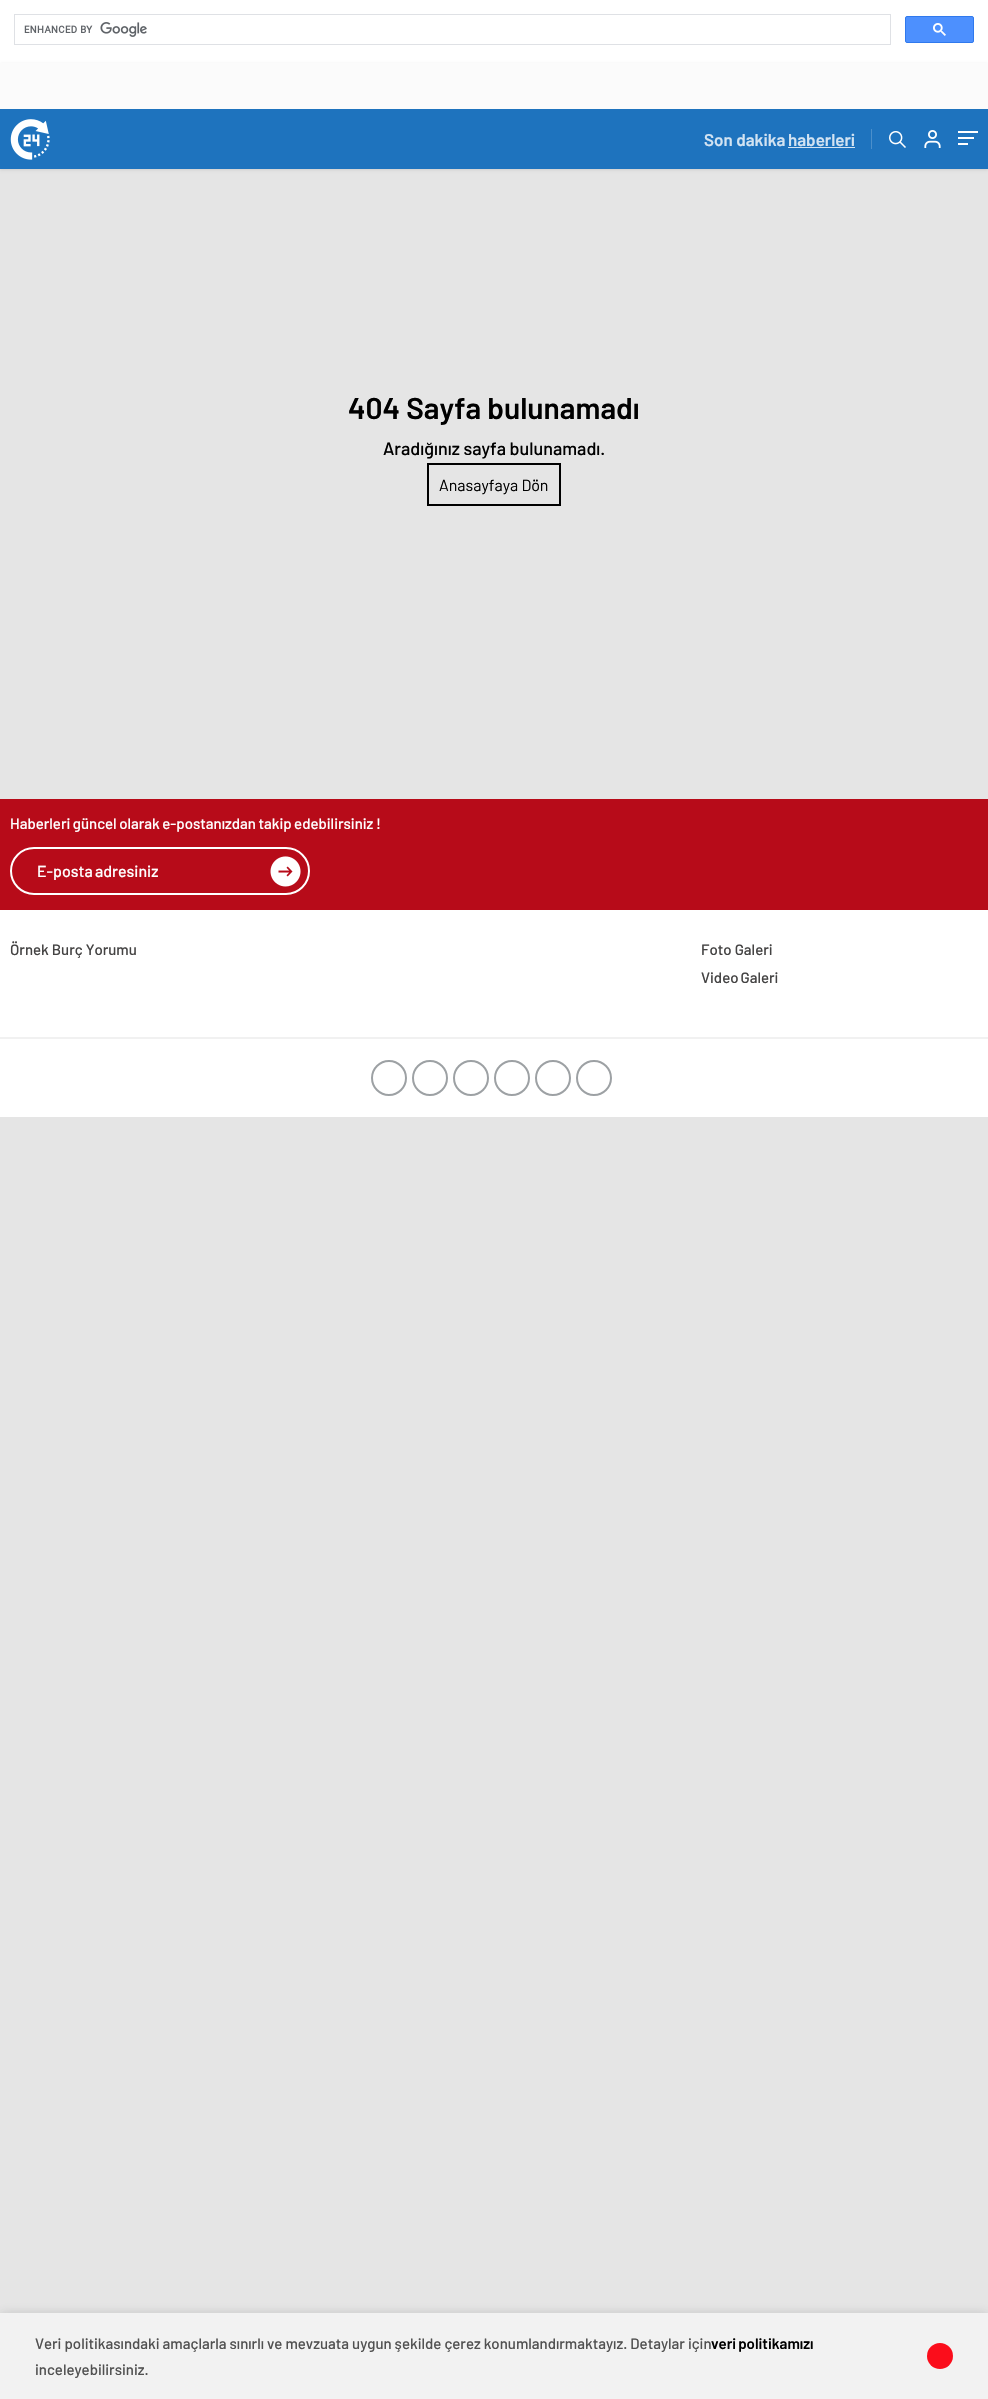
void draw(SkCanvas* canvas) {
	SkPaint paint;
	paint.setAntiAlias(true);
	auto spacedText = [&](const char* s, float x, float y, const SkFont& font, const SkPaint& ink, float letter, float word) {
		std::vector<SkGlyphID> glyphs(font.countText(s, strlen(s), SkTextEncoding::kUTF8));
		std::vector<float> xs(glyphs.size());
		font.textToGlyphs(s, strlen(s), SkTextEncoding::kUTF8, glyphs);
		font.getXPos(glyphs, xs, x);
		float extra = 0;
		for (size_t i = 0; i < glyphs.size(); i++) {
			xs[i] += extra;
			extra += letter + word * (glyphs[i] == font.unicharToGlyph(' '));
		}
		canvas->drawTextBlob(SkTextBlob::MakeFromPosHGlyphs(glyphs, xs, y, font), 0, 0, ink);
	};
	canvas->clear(0xffe5e5e5);
	paint.setColor(0xffffffff);
	canvas->drawRect(SkRect::MakeXYWH(0, 0, 988, 63), paint);
	paint.setStroke(true);
	paint.setStrokeWidth(1);
	paint.setColor(0xffdfe1e5);
	canvas->drawRect(SkRect::MakeXYWH(14.5, 14.5, 876, 30), paint);
	canvas->drawImageRect(SkImages::DeferredFromEncodedData(SkData::MakeFromFileName("img1.png")), SkRect::MakeXYWH(24, 22, 123, 15), SkSamplingOptions());
	paint.setStroke(false);
	paint.setColor(0xff4d90fe);
	canvas->drawRoundRect(SkRect::MakeXYWH(905.5, 16.5, 68, 26), 1.5, 1.5, paint);
	paint.setStroke(true);
	paint.setColor(0xff3079ed);
	canvas->drawRoundRect(SkRect::MakeXYWH(905.5, 16.5, 68, 26), 1.5, 1.5, paint);
	canvas->drawImageRect(SkImages::DeferredFromEncodedData(SkData::MakeFromFileName("img2.png")), SkRect::MakeXYWH(933, 23, 13, 13), SkSamplingOptions());
	paint.setStroke(false);
	paint.setColor(0x1a000000);
	paint.setMaskFilter(SkMaskFilter::MakeBlur(kNormal_SkBlurStyle, 1.5));
	canvas->drawRect(SkRect::MakeXYWH(0, 64, 988, 106), paint);
	paint.setMaskFilter(nullptr);
	paint.setColor(0xfffbfbfb);
	canvas->drawRect(SkRect::MakeXYWH(0, 63, 988, 46), paint);
	paint.setColor(0xff1e73be);
	canvas->drawRect(SkRect::MakeXYWH(0, 109, 988, 60), paint);
	canvas->drawImageRect(SkImages::DeferredFromEncodedData(SkData::MakeFromFileName("img3.png")), SkRect::MakeXYWH(10, 119, 40, 41), SkSamplingOptions());
	SkFont f1(fontMgr->matchFamilyStyle("Barlow", SkFontStyle(600, SkFontStyle::kNormal_Width, SkFontStyle::kUpright_Slant)), 17);
	f1.setSubpixel(true);
	paint.setColor(0xffd2e3f2);
	canvas->drawString("Son dakika", 704, 146, f1, paint);
	canvas->drawString("haberleri", 788, 146, f1, paint);
	canvas->drawRect(SkRect::MakeXYWH(788, 147, 67, 1), paint);
	paint.setColor(0xff4b8fcb);
	canvas->drawRect(SkRect::MakeXYWH(871, 129, 1, 20), paint);
	canvas->drawImageRect(SkImages::DeferredFromEncodedData(SkData::MakeFromFileName("img4.png")), SkRect::MakeXYWH(889, 131, 17, 17), SkSamplingOptions());
	canvas->drawImageRect(SkImages::DeferredFromEncodedData(SkData::MakeFromFileName("img5.png")), SkRect::MakeXYWH(924, 130, 17, 18), SkSamplingOptions());
	paint.setColor(0xffffffff);
	canvas->drawRect(SkRect::MakeXYWH(958, 131, 20, 2), paint);
	canvas->drawRect(SkRect::MakeXYWH(958, 137, 16, 2), paint);
	canvas->drawRect(SkRect::MakeXYWH(958, 143, 10, 2), paint);
	SkFont f2(fontMgr->matchFamilyStyle("Barlow", SkFontStyle(600, SkFontStyle::kNormal_Width, SkFontStyle::kUpright_Slant)), 30);
	f2.setSubpixel(true);
	paint.setColor(0xff000000);
	canvas->drawString("404 Sayfa bulunamadı", 348, 419, f2, paint);
	SkFont f3(fontMgr->matchFamilyStyle("Barlow", SkFontStyle(500, SkFontStyle::kNormal_Width, SkFontStyle::kUpright_Slant)), 18);
	f3.setSubpixel(true);
	canvas->drawString("Aradığınız sayfa bulunamadı.", 383, 455, f3, paint);
	paint.setStroke(true);
	paint.setStrokeWidth(2);
	canvas->drawRect(SkRect::MakeXYWH(428, 464, 132, 41), paint);
	SkFont f4(fontMgr->matchFamilyStyle("Barlow", SkFontStyle::Normal()), 16);
	f4.setSubpixel(true);
	paint.setStroke(false);
	canvas->drawString("Anasayfaya Dön", 439, 491, f4, paint);
	paint.setColor(0xffffffff);
	canvas->drawRect(SkRect::MakeXYWH(0, 910, 988, 207), paint);
	paint.setColor(0xffb70b19);
	canvas->drawRect(SkRect::MakeXYWH(0, 799, 988, 111), paint);
	SkFont f5(fontMgr->matchFamilyStyle("Barlow", SkFontStyle(500, SkFontStyle::kNormal_Width, SkFontStyle::kUpright_Slant)), 15);
	f5.setSubpixel(true);
	paint.setColor(0xffffffff);
	spacedText("Haberleri güncel olarak e-postanızdan takip edebilirsiniz !", 10, 829, f5, paint, 0, -0.5);
	paint.setStroke(true);
	canvas->drawRoundRect(SkRect::MakeXYWH(11, 848, 298, 46), 23, 23, paint);
	SkFont f6(fontMgr->matchFamilyStyle("Barlow", SkFontStyle(500, SkFontStyle::kNormal_Width, SkFontStyle::kUpright_Slant)), 16);
	f6.setSubpixel(true);
	paint.setStroke(false);
	spacedText("E-posta adresiniz", 37, 877, f6, paint, 0, -1);
	canvas->drawImageRect(SkImages::DeferredFromEncodedData(SkData::MakeFromFileName("img6.png")), SkRect::MakeXYWH(270, 856, 31, 31), SkSamplingOptions());
	paint.setColor(0xff444343);
	canvas->drawString("Örnek Burç Yorumu", 10, 955, f5, paint);
	canvas->drawString("Foto Galeri", 701, 955, f5, paint);
	spacedText("Video Galeri", 701, 983, f5, paint, 0, -1);
	paint.setColor(0xfff1f1f1);
	canvas->drawRect(SkRect::MakeXYWH(0, 1037, 988, 2), paint);
	paint.setStroke(true);
	paint.setColor(0xff9da1a4);
	canvas->drawCircle(389, 1078, 17, paint);
	canvas->drawCircle(430, 1078, 17, paint);
	canvas->drawCircle(471, 1078, 17, paint);
	canvas->drawCircle(512, 1078, 17, paint);
	canvas->drawCircle(553, 1078, 17, paint);
	canvas->drawCircle(594, 1078, 17, paint);
	paint.setStroke(false);
	paint.setColor(0x29222222);
	paint.setMaskFilter(SkMaskFilter::MakeBlur(kNormal_SkBlurStyle, 5));
	canvas->drawRect(SkRect::MakeXYWH(0, 2313, 988, 86), paint);
	paint.setMaskFilter(nullptr);
	paint.setColor(0xfff2f2f2);
	canvas->drawRect(SkRect::MakeXYWH(0, 2313, 988, 86), paint);
	paint.setColor(0xff515151);
	canvas->drawString("Veri politikasındaki amaçlarla sınırlı ve mevzuata uygun şekilde çerez konumlandırmaktayız. Detaylar için", 35, 2349, f5, paint);
	SkFont f7(fontMgr->matchFamilyStyle("Barlow", SkFontStyle(600, SkFontStyle::kNormal_Width, SkFontStyle::kUpright_Slant)), 15);
	f7.setSubpixel(true);
	paint.setColor(0xff000000);
	spacedText("veri politikamızı", 711, 2349, f7, paint, 0, -1);
	paint.setColor(0xff515151);
	canvas->drawString("inceleyebilirsiniz.", 35, 2375, f5, paint);
	paint.setColor(0xfffb0d1b);
	canvas->drawCircle(940, 2356, 13, paint);
}
